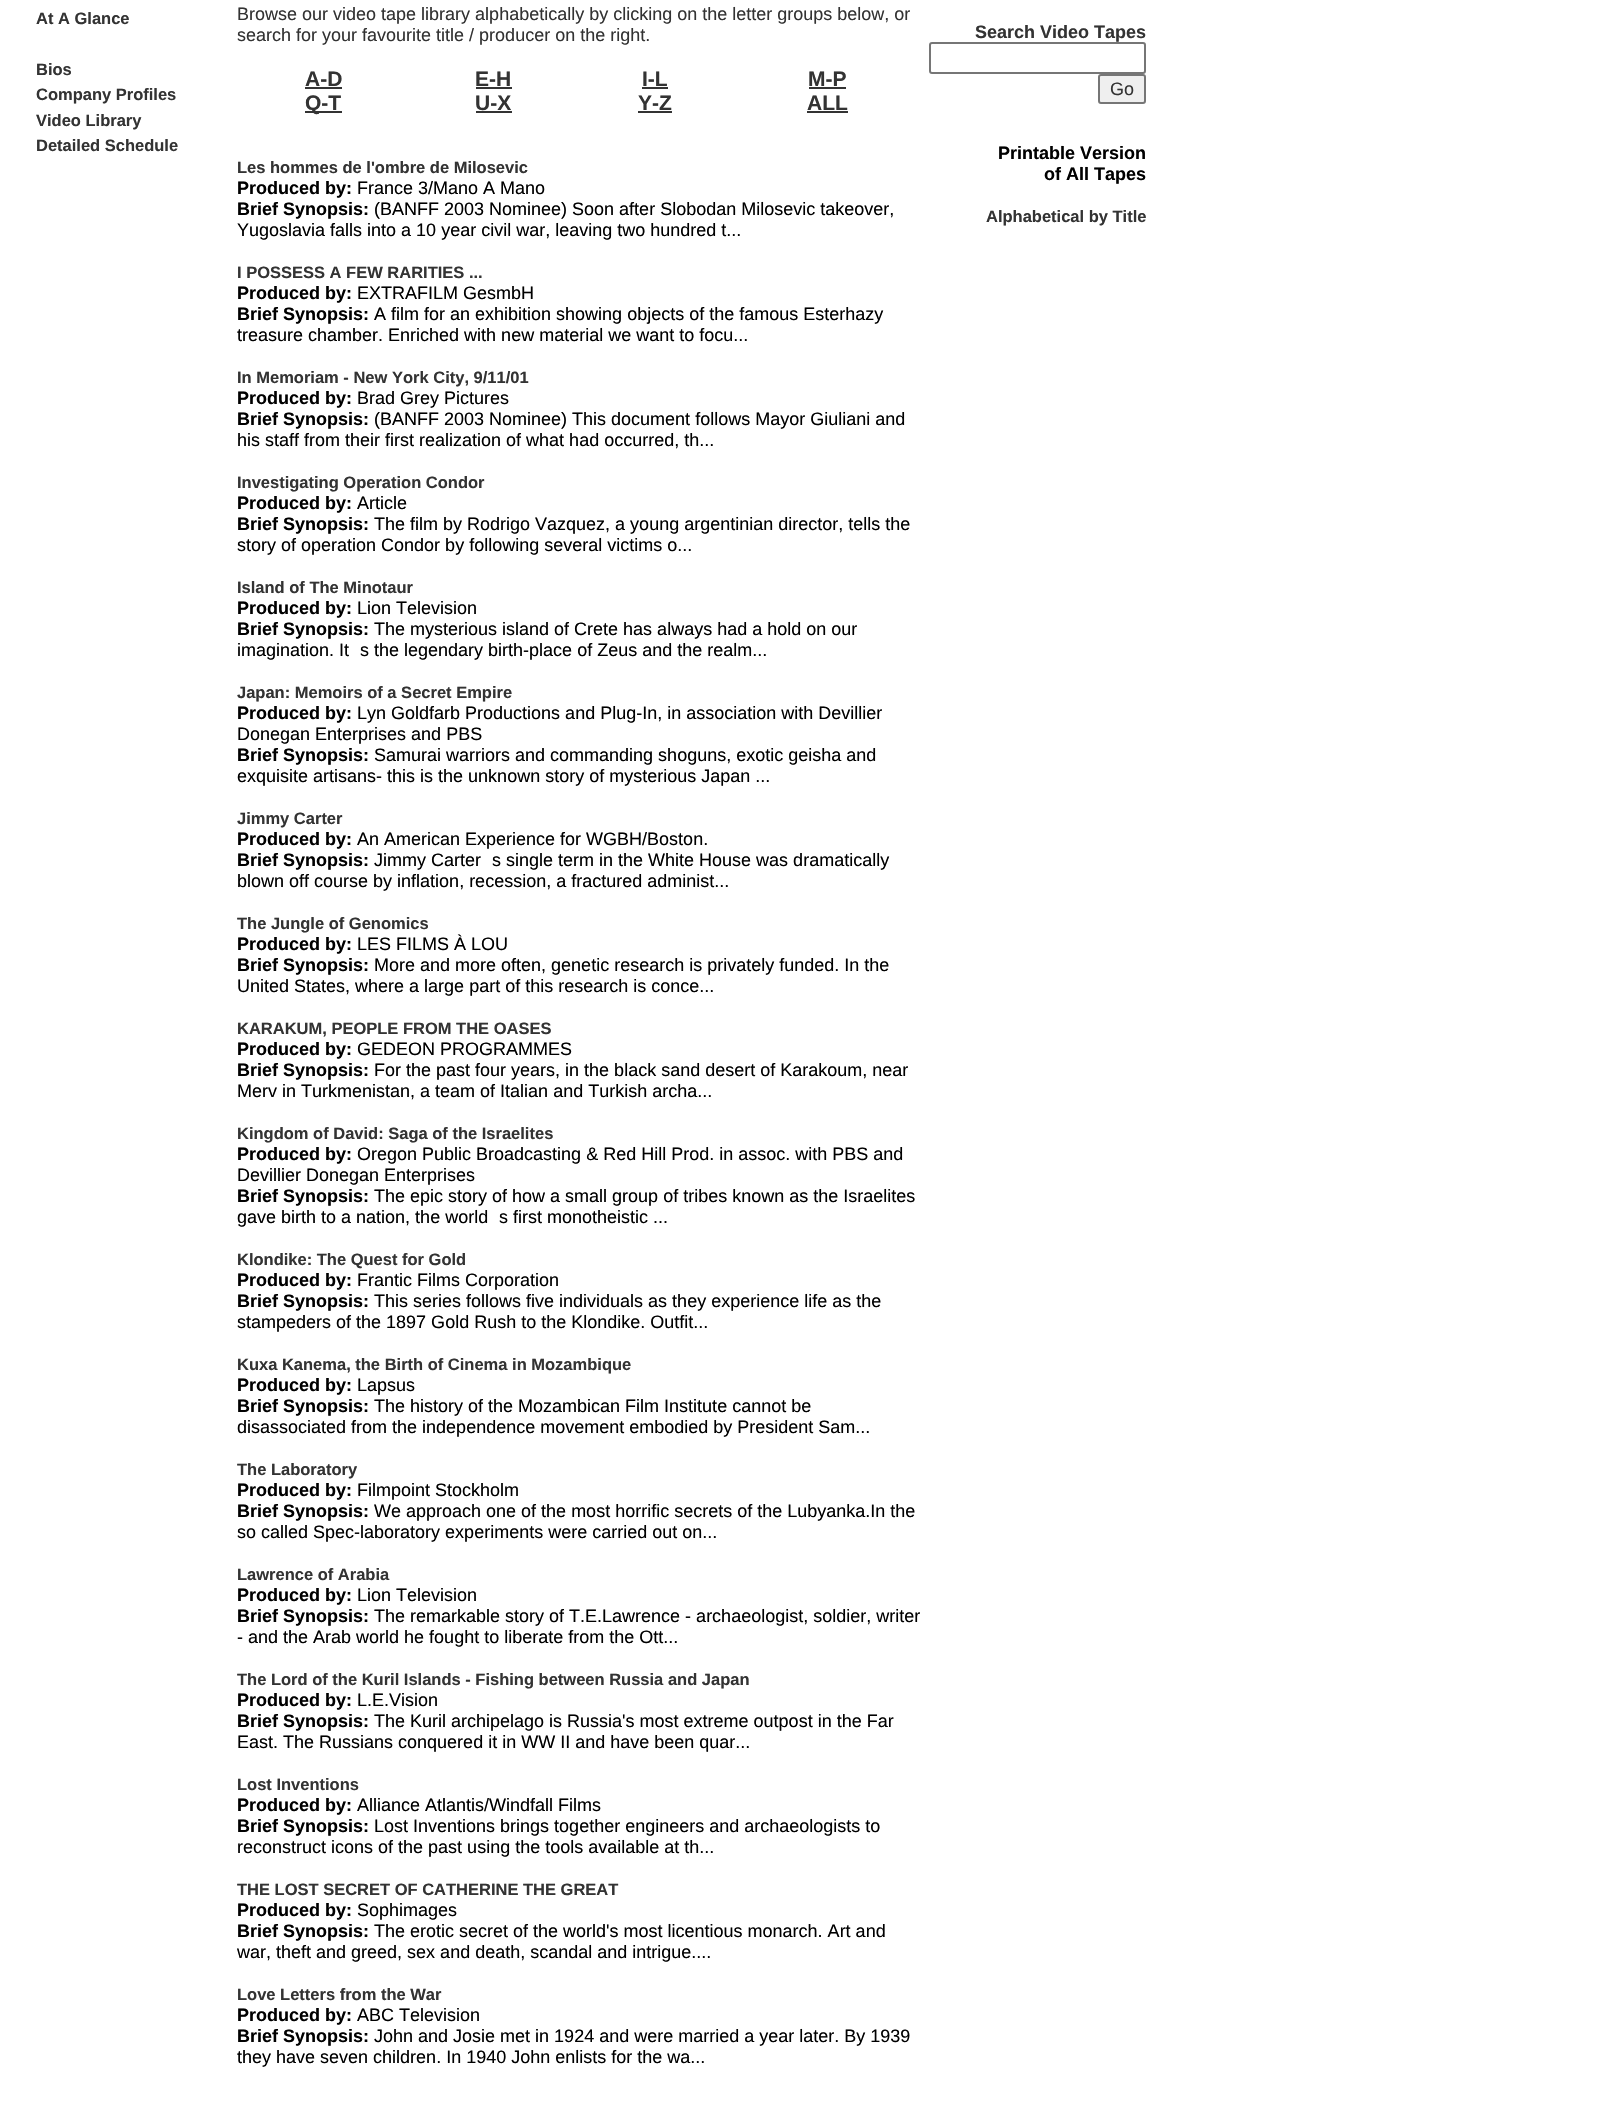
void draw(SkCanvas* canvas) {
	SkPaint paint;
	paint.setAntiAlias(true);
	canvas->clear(0xffffffff);
	SkFont f1(fontMgr->matchFamilyStyle("Liberation Sans", SkFontStyle::Bold()), 16.5);
	f1.setSubpixel(true);
	paint.setColor(0xff333333);
	canvas->drawString("At A Glance", 36, 24, f1, paint);
	canvas->drawString("Bios", 36, 75, f1, paint);
	canvas->drawString("Company Profiles", 36, 100, f1, paint);
	canvas->drawString("Video Library", 36, 126, f1, paint);
	canvas->drawString("Detailed Schedule", 36, 151, f1, paint);
	SkFont f2(fontMgr->matchFamilyStyle("Liberation Sans", SkFontStyle::Normal()), 18);
	f2.setSubpixel(true);
	canvas->drawString("Browse our video tape library alphabetically by clicking on the letter groups below, or", 237, 20, f2, paint);
	canvas->drawString("search for your favourite title / producer on the right.", 237, 41, f2, paint);
	SkFont f3(fontMgr->matchFamilyStyle("Liberation Sans", SkFontStyle::Bold()), 21);
	f3.setSubpixel(true);
	canvas->drawString("A-D", 305, 86, f3, paint);
	canvas->drawRect(SkRect::MakeXYWH(305, 87, 37, 2), paint);
	canvas->drawString("E-H", 475, 86, f3, paint);
	canvas->drawRect(SkRect::MakeXYWH(476, 87, 36, 2), paint);
	canvas->drawString("I-L", 642, 86, f3, paint);
	canvas->drawRect(SkRect::MakeXYWH(642, 87, 26, 2), paint);
	canvas->drawString("M-P", 808, 86, f3, paint);
	canvas->drawRect(SkRect::MakeXYWH(809, 87, 37, 2), paint);
	canvas->drawRect(SkRect::MakeXYWH(305, 111, 37, 2), paint);
	canvas->drawString("Q-T", 305, 110, f3, paint);
	canvas->drawString("U-X", 475, 110, f3, paint);
	canvas->drawRect(SkRect::MakeXYWH(476, 111, 36, 2), paint);
	canvas->drawString("Y-Z", 638, 110, f3, paint);
	canvas->drawRect(SkRect::MakeXYWH(638, 111, 34, 2), paint);
	canvas->drawString("ALL", 807, 110, f3, paint);
	canvas->drawRect(SkRect::MakeXYWH(807, 111, 41, 2), paint);
	canvas->drawString("Les hommes de l'ombre de Milosevic", 237, 173, f1, paint);
	SkFont f4(fontMgr->matchFamilyStyle("Liberation Sans", SkFontStyle::Bold()), 18);
	f4.setSubpixel(true);
	paint.setColor(0xff000000);
	canvas->drawString("Produced by:", 237, 194, f4, paint);
	canvas->drawString("France 3/Mano A Mano", 357, 194, f2, paint);
	canvas->drawString("Brief Synopsis:", 237, 215, f4, paint);
	canvas->drawString("(BANFF 2003 Nominee) Soon after Slobodan Milosevic takeover,", 374, 215, f2, paint);
	canvas->drawString("Yugoslavia falls into a 10 year civil war, leaving two hundred t...", 237, 236, f2, paint);
	paint.setColor(0xff333333);
	canvas->drawString("I POSSESS A FEW RARITIES ...", 237, 278, f1, paint);
	paint.setColor(0xff000000);
	canvas->drawString("Produced by:", 237, 299, f4, paint);
	canvas->drawString("EXTRAFILM GesmbH", 357, 299, f2, paint);
	canvas->drawString("Brief Synopsis:", 237, 320, f4, paint);
	canvas->drawString("A film for an exhibition showing objects of the famous Esterhazy", 374, 320, f2, paint);
	canvas->drawString("treasure chamber. Enriched with new material we want to focu...", 237, 341, f2, paint);
	paint.setColor(0xff333333);
	canvas->drawString("In Memoriam - New York City, 9/11/01", 237, 383, f1, paint);
	paint.setColor(0xff000000);
	canvas->drawString("Produced by:", 237, 404, f4, paint);
	canvas->drawString("Brad Grey Pictures", 357, 404, f2, paint);
	canvas->drawString("Brief Synopsis:", 237, 425, f4, paint);
	canvas->drawString("(BANFF 2003 Nominee) This document follows Mayor Giuliani and", 374, 425, f2, paint);
	canvas->drawString("his staff from their first realization of what had occurred, th...", 237, 446, f2, paint);
	paint.setColor(0xff333333);
	canvas->drawString("Investigating Operation Condor", 237, 488, f1, paint);
	paint.setColor(0xff000000);
	canvas->drawString("Produced by:", 237, 509, f4, paint);
	canvas->drawString("Article", 357, 509, f2, paint);
	canvas->drawString("Brief Synopsis:", 237, 530, f4, paint);
	canvas->drawString("The film by Rodrigo Vazquez, a young argentinian director, tells the", 374, 530, f2, paint);
	canvas->drawString("story of operation Condor by following several victims o...", 237, 551, f2, paint);
	paint.setColor(0xff333333);
	canvas->drawString("Island of The Minotaur", 237, 593, f1, paint);
	paint.setColor(0xff000000);
	canvas->drawString("Produced by:", 237, 614, f4, paint);
	canvas->drawString("Lion Television", 357, 614, f2, paint);
	canvas->drawString("Brief Synopsis:", 237, 635, f4, paint);
	canvas->drawString("The mysterious island of Crete has always had a hold on our", 374, 635, f2, paint);
	canvas->drawString("imagination. It", 237, 656, f2, paint);
	canvas->drawString("s the legendary birth-place of Zeus and the realm...", 360, 656, f2, paint);
	paint.setColor(0xff333333);
	canvas->drawString("Japan: Memoirs of a Secret Empire", 237, 698, f1, paint);
	paint.setColor(0xff000000);
	canvas->drawString("Produced by:", 237, 719, f4, paint);
	canvas->drawString("Lyn Goldfarb Productions and Plug-In, in association with Devillier", 357, 719, f2, paint);
	canvas->drawString("Donegan Enterprises and PBS", 237, 740, f2, paint);
	canvas->drawString("Brief Synopsis:", 237, 761, f4, paint);
	canvas->drawString("Samurai warriors and commanding shoguns, exotic geisha and", 374, 761, f2, paint);
	canvas->drawString("exquisite artisans- this is the unknown story of mysterious Japan ...", 237, 782, f2, paint);
	paint.setColor(0xff333333);
	canvas->drawString("Jimmy Carter", 237, 824, f1, paint);
	paint.setColor(0xff000000);
	canvas->drawString("Produced by:", 237, 845, f4, paint);
	canvas->drawString("An American Experience for WGBH/Boston.", 357, 845, f2, paint);
	canvas->drawString("Brief Synopsis:", 237, 866, f4, paint);
	canvas->drawString("Jimmy Carter", 374, 866, f2, paint);
	canvas->drawString("s single term in the White House was dramatically", 492, 866, f2, paint);
	canvas->drawString("blown off course by inflation, recession, a fractured administ...", 237, 887, f2, paint);
	paint.setColor(0xff333333);
	canvas->drawString("The Jungle of Genomics", 237, 929, f1, paint);
	paint.setColor(0xff000000);
	canvas->drawString("Produced by:", 237, 950, f4, paint);
	canvas->drawString("LES FILMS À LOU", 357, 950, f2, paint);
	canvas->drawString("Brief Synopsis:", 237, 971, f4, paint);
	canvas->drawString("More and more often, genetic research is privately funded. In the", 374, 971, f2, paint);
	canvas->drawString("United States, where a large part of this research is conce...", 237, 992, f2, paint);
	paint.setColor(0xff333333);
	canvas->drawString("KARAKUM, PEOPLE FROM THE OASES", 237, 1034, f1, paint);
	paint.setColor(0xff000000);
	canvas->drawString("Produced by:", 237, 1055, f4, paint);
	canvas->drawString("GEDEON PROGRAMMES", 357, 1055, f2, paint);
	canvas->drawString("Brief Synopsis:", 237, 1076, f4, paint);
	canvas->drawString("For the past four years, in the black sand desert of Karakoum, near", 374, 1076, f2, paint);
	canvas->drawString("Merv in Turkmenistan, a team of Italian and Turkish archa...", 237, 1097, f2, paint);
	paint.setColor(0xff333333);
	canvas->drawString("Kingdom of David: Saga of the Israelites", 237, 1139, f1, paint);
	paint.setColor(0xff000000);
	canvas->drawString("Produced by:", 237, 1160, f4, paint);
	canvas->drawString("Oregon Public Broadcasting & Red Hill Prod. in assoc. with PBS and", 357, 1160, f2, paint);
	canvas->drawString("Devillier Donegan Enterprises", 237, 1181, f2, paint);
	canvas->drawString("Brief Synopsis:", 237, 1202, f4, paint);
	canvas->drawString("The epic story of how a small group of tribes known as the Israelites", 374, 1202, f2, paint);
	canvas->drawString("gave birth to a nation, the world", 237, 1223, f2, paint);
	canvas->drawString("s first monotheistic ...", 499, 1223, f2, paint);
	paint.setColor(0xff333333);
	canvas->drawString("Klondike: The Quest for Gold", 237, 1265, f1, paint);
	paint.setColor(0xff000000);
	canvas->drawString("Produced by:", 237, 1286, f4, paint);
	canvas->drawString("Frantic Films Corporation", 357, 1286, f2, paint);
	canvas->drawString("Brief Synopsis:", 237, 1307, f4, paint);
	canvas->drawString("This series follows five individuals as they experience life as the", 374, 1307, f2, paint);
	canvas->drawString("stampeders of the 1897 Gold Rush to the Klondike. Outfit...", 237, 1328, f2, paint);
	paint.setColor(0xff333333);
	canvas->drawString("Kuxa Kanema, the Birth of Cinema in Mozambique", 237, 1370, f1, paint);
	paint.setColor(0xff000000);
	canvas->drawString("Produced by:", 237, 1391, f4, paint);
	canvas->drawString("Lapsus", 357, 1391, f2, paint);
	canvas->drawString("Brief Synopsis:", 237, 1412, f4, paint);
	canvas->drawString("The history of the Mozambican Film Institute cannot be", 374, 1412, f2, paint);
	canvas->drawString("disassociated from the independence movement embodied by President Sam...", 237, 1433, f2, paint);
	paint.setColor(0xff333333);
	canvas->drawString("The Laboratory", 237, 1475, f1, paint);
	paint.setColor(0xff000000);
	canvas->drawString("Produced by:", 237, 1496, f4, paint);
	canvas->drawString("Filmpoint Stockholm", 357, 1496, f2, paint);
	canvas->drawString("Brief Synopsis:", 237, 1517, f4, paint);
	canvas->drawString("We approach one of the most horrific secrets of the Lubyanka.In the", 374, 1517, f2, paint);
	canvas->drawString("so called Spec-laboratory experiments were carried out on...", 237, 1538, f2, paint);
	paint.setColor(0xff333333);
	canvas->drawString("Lawrence of Arabia", 237, 1580, f1, paint);
	paint.setColor(0xff000000);
	canvas->drawString("Produced by:", 237, 1601, f4, paint);
	canvas->drawString("Lion Television", 357, 1601, f2, paint);
	canvas->drawString("Brief Synopsis:", 237, 1622, f4, paint);
	canvas->drawString("The remarkable story of T.E.Lawrence - archaeologist, soldier, writer", 374, 1622, f2, paint);
	canvas->drawString("- and the Arab world he fought to liberate from the Ott...", 237, 1643, f2, paint);
	paint.setColor(0xff333333);
	canvas->drawString("The Lord of the Kuril Islands - Fishing between Russia and Japan", 237, 1685, f1, paint);
	paint.setColor(0xff000000);
	canvas->drawString("Produced by:", 237, 1706, f4, paint);
	canvas->drawString("L.E.Vision", 357, 1706, f2, paint);
	canvas->drawString("Brief Synopsis:", 237, 1727, f4, paint);
	canvas->drawString("The Kuril archipelago is Russia's most extreme outpost in the Far", 374, 1727, f2, paint);
	canvas->drawString("East. The Russians conquered it in WW II and have been quar...", 237, 1748, f2, paint);
	paint.setColor(0xff333333);
	canvas->drawString("Lost Inventions", 237, 1790, f1, paint);
	paint.setColor(0xff000000);
	canvas->drawString("Produced by:", 237, 1811, f4, paint);
	canvas->drawString("Alliance Atlantis/Windfall Films", 357, 1811, f2, paint);
	canvas->drawString("Brief Synopsis:", 237, 1832, f4, paint);
	canvas->drawString("Lost Inventions brings together engineers and archaeologists to", 374, 1832, f2, paint);
	canvas->drawString("reconstruct icons of the past using the tools available at th...", 237, 1853, f2, paint);
	paint.setColor(0xff333333);
	canvas->drawString("THE LOST SECRET OF CATHERINE THE GREAT", 237, 1895, f1, paint);
	paint.setColor(0xff000000);
	canvas->drawString("Produced by:", 237, 1916, f4, paint);
	canvas->drawString("Sophimages", 357, 1916, f2, paint);
	canvas->drawString("Brief Synopsis:", 237, 1937, f4, paint);
	canvas->drawString("The erotic secret of the world's most licentious monarch. Art and", 374, 1937, f2, paint);
	canvas->drawString("war, theft and greed, sex and death, scandal and intrigue....", 237, 1958, f2, paint);
	paint.setColor(0xff333333);
	canvas->drawString("Love Letters from the War", 237, 2000, f1, paint);
	paint.setColor(0xff000000);
	canvas->drawString("Produced by:", 237, 2021, f4, paint);
	canvas->drawString("ABC Television", 357, 2021, f2, paint);
	canvas->drawString("Brief Synopsis:", 237, 2042, f4, paint);
	canvas->drawString("John and Josie met in 1924 and were married a year later. By 1939", 374, 2042, f2, paint);
	canvas->drawString("they have seven children. In 1940 John enlists for the wa...", 237, 2063, f2, paint);
	paint.setColor(0xff333333);
	canvas->drawString("Search Video Tapes", 975, 38, f4, paint);
	paint.setStroke(true);
	paint.setStrokeWidth(2);
	paint.setColor(0xff767676);
	canvas->drawRoundRect(SkRect::MakeXYWH(930, 43, 215, 30), 2, 2, paint);
	paint.setStroke(false);
	paint.setColor(0xffefefef);
	canvas->drawRoundRect(SkRect::MakeXYWH(1099, 75, 46, 28), 2, 2, paint);
	paint.setStroke(true);
	paint.setColor(0xff767676);
	canvas->drawRoundRect(SkRect::MakeXYWH(1099, 75, 46, 28), 2, 2, paint);
	paint.setStroke(false);
	paint.setColor(0xff333333);
	canvas->drawString("Go", 1110, 95, f2, paint);
	paint.setColor(0xff000000);
	canvas->drawString("Printable Version", 998, 159, f4, paint);
	canvas->drawString("of All Tapes", 1044, 180, f4, paint);
	paint.setColor(0xff333333);
	canvas->drawString("Alphabetical by Title", 986, 222, f1, paint);
}
